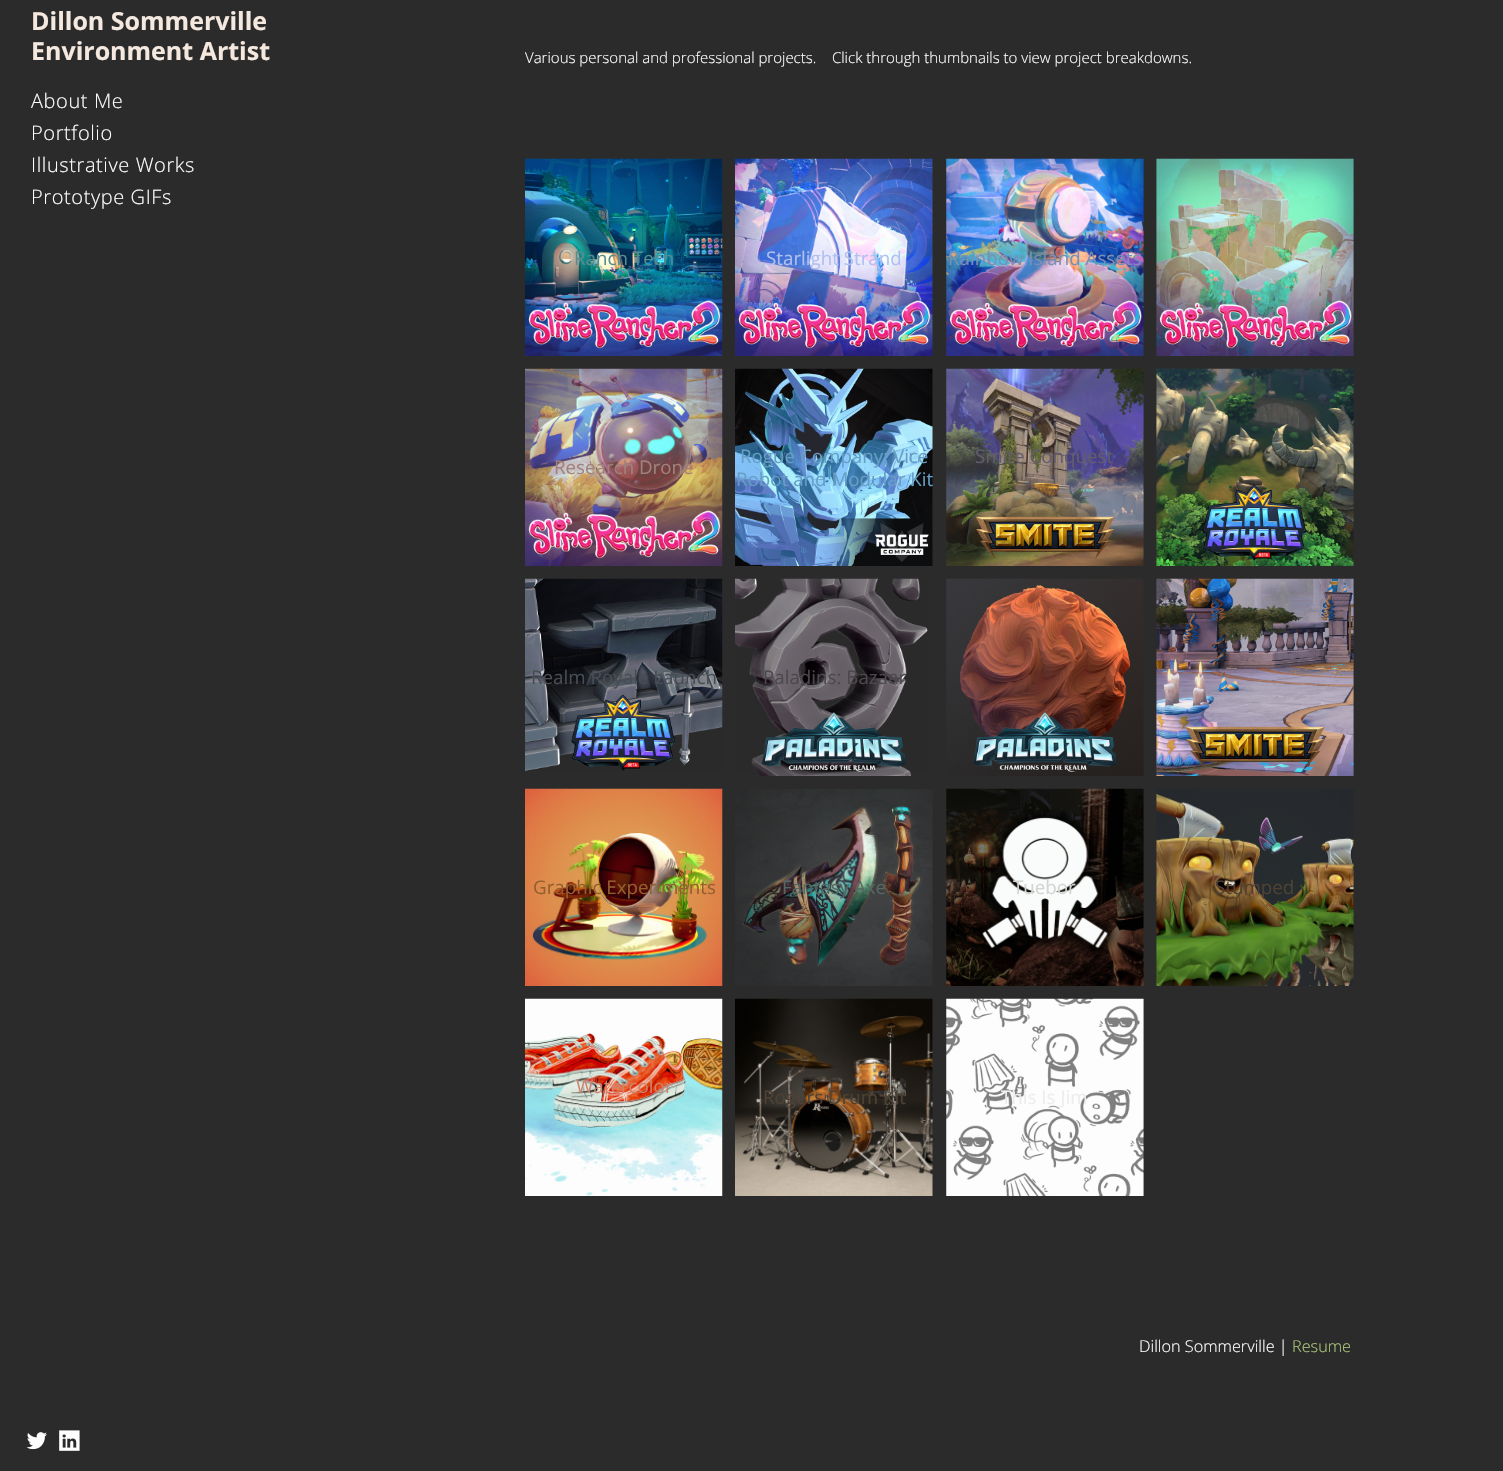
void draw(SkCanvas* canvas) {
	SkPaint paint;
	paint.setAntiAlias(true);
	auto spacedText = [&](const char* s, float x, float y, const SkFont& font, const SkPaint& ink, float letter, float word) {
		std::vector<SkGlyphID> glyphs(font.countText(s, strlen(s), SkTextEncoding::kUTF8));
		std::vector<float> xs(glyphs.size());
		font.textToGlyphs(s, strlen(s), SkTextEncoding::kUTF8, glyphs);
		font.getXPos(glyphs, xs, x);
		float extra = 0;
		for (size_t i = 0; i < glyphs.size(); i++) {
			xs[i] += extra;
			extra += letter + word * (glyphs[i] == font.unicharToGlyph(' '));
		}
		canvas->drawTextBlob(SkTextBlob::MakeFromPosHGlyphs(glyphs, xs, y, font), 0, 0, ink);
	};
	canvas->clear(0xff2b2b2b);
	SkFont f1(fontMgr->matchFamilyStyle("Open Sans", SkFontStyle::Bold()), 25);
	f1.setSubpixel(true);
	paint.setColor(0xfff5e8df);
	canvas->drawString("Dillon Sommerville", 31, 30, f1, paint);
	canvas->drawString("Environment Artist", 31, 60, f1, paint);
	SkFont f2(fontMgr->matchFamilyStyle("Open Sans", SkFontStyle(300, SkFontStyle::kNormal_Width, SkFontStyle::kUpright_Slant)), 20);
	f2.setSubpixel(true);
	paint.setColor(0xffffffff);
	spacedText("About Me", 31, 108, f2, paint, 0.6, 0);
	spacedText("Portfolio", 31, 140, f2, paint, 0.6, 0);
	spacedText("Illustrative Works", 31, 172, f2, paint, 0.6, 0);
	spacedText("Prototype GIFs", 31, 204, f2, paint, 0.6, 0);
	SkFont f3(fontMgr->matchFamilyStyle("Open Sans", SkFontStyle(300, SkFontStyle::kNormal_Width, SkFontStyle::kUpright_Slant)), 15);
	f3.setSubpixel(true);
	canvas->drawString("Various personal and professional projects.    Click through thumbnails to view project breakdowns.", 525, 63, f3, paint);
	canvas->drawImageRect(SkImages::DeferredFromEncodedData(SkData::MakeFromFileName("img1.png")), SkRect::MakeXYWH(525, 158, 198, 198), SkSamplingOptions());
	SkFont f4(fontMgr->matchFamilyStyle("Open Sans", SkFontStyle::Normal()), 18.75);
	f4.setSubpixel(true);
	paint.setColor(0xff568c92);
	canvas->drawString("Ranch Tech", 574, 265, f4, paint);
	canvas->drawImageRect(SkImages::DeferredFromEncodedData(SkData::MakeFromFileName("img2.png")), SkRect::MakeXYWH(735, 158, 198, 198), SkSamplingOptions());
	paint.setColor(0xffb1c0ef);
	canvas->drawString("Starlight Strand", 766, 265, f4, paint);
	canvas->drawImageRect(SkImages::DeferredFromEncodedData(SkData::MakeFromFileName("img3.png")), SkRect::MakeXYWH(946, 158, 198, 198), SkSamplingOptions());
	paint.setColor(0xff7a8fb4);
	canvas->drawString("Rainbow Island Assets", 948, 265, f4, paint);
	canvas->drawImageRect(SkImages::DeferredFromEncodedData(SkData::MakeFromFileName("img4.png")), SkRect::MakeXYWH(1156, 158, 198, 198), SkSamplingOptions());
	canvas->drawImageRect(SkImages::DeferredFromEncodedData(SkData::MakeFromFileName("img5.png")), SkRect::MakeXYWH(525, 368, 198, 198), SkSamplingOptions());
	paint.setColor(0xffa2817d);
	canvas->drawString("Research Drone", 554, 474, f4, paint);
	canvas->drawImageRect(SkImages::DeferredFromEncodedData(SkData::MakeFromFileName("img6.png")), SkRect::MakeXYWH(735, 368, 198, 198), SkSamplingOptions());
	paint.setColor(0xff669ec5);
	canvas->drawString("Rogue Company: Vice", 740, 463, f4, paint);
	canvas->drawString("Robot and Modular Kit", 736, 486, f4, paint);
	canvas->drawImageRect(SkImages::DeferredFromEncodedData(SkData::MakeFromFileName("img7.png")), SkRect::MakeXYWH(946, 368, 198, 198), SkSamplingOptions());
	paint.setColor(0xff625c6c);
	canvas->drawString("Smite Conquest", 975, 463, f4, paint);
	canvas->drawImageRect(SkImages::DeferredFromEncodedData(SkData::MakeFromFileName("img8.png")), SkRect::MakeXYWH(1156, 368, 198, 198), SkSamplingOptions());
	paint.setColor(0xff4e543e);
	canvas->drawString("n", 1336, 474, f4, paint);
	canvas->drawImageRect(SkImages::DeferredFromEncodedData(SkData::MakeFromFileName("img9.png")), SkRect::MakeXYWH(525, 578, 198, 193), SkSamplingOptions());
	paint.setColor(0xff484c54);
	canvas->drawString("Realm Royale Launch", 531, 684, f4, paint);
	canvas->drawImageRect(SkImages::DeferredFromEncodedData(SkData::MakeFromFileName("img10.png")), SkRect::MakeXYWH(735, 578, 193, 198), SkSamplingOptions());
	paint.setColor(0xff4c484d);
	canvas->drawString("Paladins: Bazaar", 763, 684, f4, paint);
	canvas->drawImageRect(SkImages::DeferredFromEncodedData(SkData::MakeFromFileName("img11.png")), SkRect::MakeXYWH(946, 578, 198, 198), SkSamplingOptions());
	canvas->drawImageRect(SkImages::DeferredFromEncodedData(SkData::MakeFromFileName("img12.png")), SkRect::MakeXYWH(1156, 578, 198, 198), SkSamplingOptions());
	canvas->drawImageRect(SkImages::DeferredFromEncodedData(SkData::MakeFromFileName("img13.png")), SkRect::MakeXYWH(525, 788, 198, 198), SkSamplingOptions());
	paint.setColor(0xff945f2e);
	canvas->drawString("Graphic Experiments", 533, 894, f4, paint);
	canvas->drawImageRect(SkImages::DeferredFromEncodedData(SkData::MakeFromFileName("img14.png")), SkRect::MakeXYWH(735, 789, 198, 197), SkSamplingOptions());
	paint.setColor(0xff566861);
	canvas->drawString("Fantasy Axe", 782, 894, f4, paint);
	canvas->drawImageRect(SkImages::DeferredFromEncodedData(SkData::MakeFromFileName("img15.png")), SkRect::MakeXYWH(946, 788, 198, 198), SkSamplingOptions());
	paint.setColor(0xffd3d5d3);
	canvas->drawString("Tuebor", 1013, 894, f4, paint);
	canvas->drawImageRect(SkImages::DeferredFromEncodedData(SkData::MakeFromFileName("img16.png")), SkRect::MakeXYWH(1156, 789, 198, 197), SkSamplingOptions());
	paint.setColor(0xff4d4133);
	canvas->drawString("Stumped", 1215, 894, f4, paint);
	canvas->drawImageRect(SkImages::DeferredFromEncodedData(SkData::MakeFromFileName("img17.png")), SkRect::MakeXYWH(525, 998, 198, 198), SkSamplingOptions());
	paint.setColor(0xffce836c);
	canvas->drawString("Watercolor", 576, 1093, f4, paint);
	canvas->drawImageRect(SkImages::DeferredFromEncodedData(SkData::MakeFromFileName("img18.png")), SkRect::MakeXYWH(735, 998, 198, 198), SkSamplingOptions());
	paint.setColor(0xff4d4133);
	canvas->drawString("Rogers Drum Kit", 763, 1104, f4, paint);
	canvas->drawImageRect(SkImages::DeferredFromEncodedData(SkData::MakeFromFileName("img19.png")), SkRect::MakeXYWH(946, 998, 198, 198), SkSamplingOptions());
	paint.setColor(0xffededed);
	canvas->drawString("This Is Jim", 1001, 1104, f4, paint);
	SkFont f5(fontMgr->matchFamilyStyle("Open Sans", SkFontStyle(300, SkFontStyle::kNormal_Width, SkFontStyle::kUpright_Slant)), 16.25);
	f5.setSubpixel(true);
	paint.setColor(0xffffffff);
	canvas->drawString("Dillon Sommerville |", 1139, 1352, f5, paint);
	paint.setColor(0xffabc87b);
	canvas->drawString("Resume", 1292, 1352, f5, paint);
	canvas->drawImageRect(SkImages::DeferredFromEncodedData(SkData::MakeFromFileName("img20.png")), SkRect::MakeXYWH(26, 1432, 21, 18), SkSamplingOptions());
	canvas->drawImageRect(SkImages::DeferredFromEncodedData(SkData::MakeFromFileName("img21.png")), SkRect::MakeXYWH(59, 1430, 21, 21), SkSamplingOptions());
}
